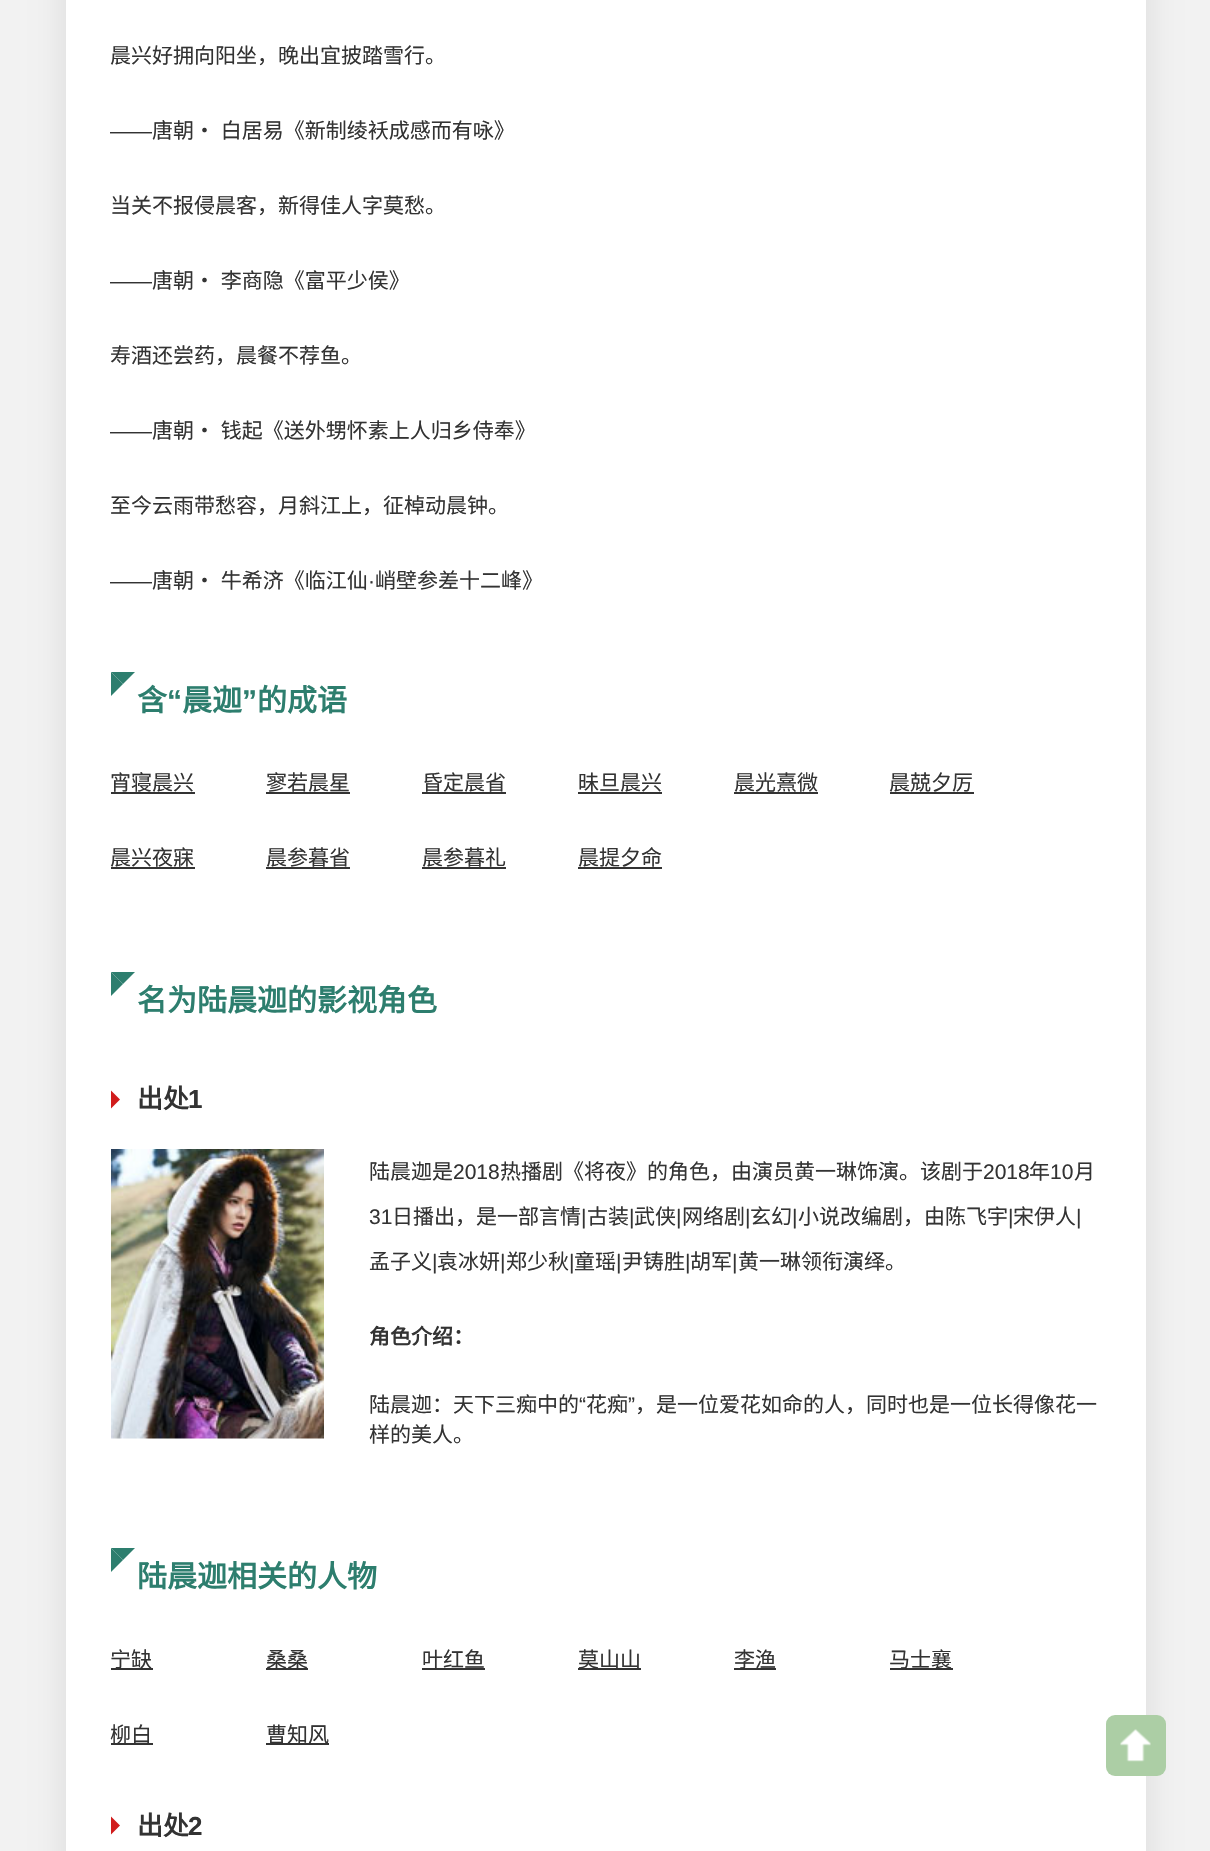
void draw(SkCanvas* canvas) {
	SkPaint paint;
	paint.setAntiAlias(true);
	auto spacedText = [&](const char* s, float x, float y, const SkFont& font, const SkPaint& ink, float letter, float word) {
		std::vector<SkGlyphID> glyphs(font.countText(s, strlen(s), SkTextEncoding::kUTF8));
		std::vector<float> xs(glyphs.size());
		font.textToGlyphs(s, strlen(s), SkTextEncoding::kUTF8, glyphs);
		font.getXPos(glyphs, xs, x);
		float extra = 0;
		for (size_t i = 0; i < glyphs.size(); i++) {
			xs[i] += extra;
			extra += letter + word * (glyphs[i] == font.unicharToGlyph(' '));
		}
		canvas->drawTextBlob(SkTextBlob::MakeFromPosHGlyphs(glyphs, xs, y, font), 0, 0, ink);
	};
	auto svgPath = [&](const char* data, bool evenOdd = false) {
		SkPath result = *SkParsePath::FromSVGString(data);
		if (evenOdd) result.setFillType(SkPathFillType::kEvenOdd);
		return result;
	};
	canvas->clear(0xfff2f2f2);
	paint.setColor(0x1a000000);
	paint.setMaskFilter(SkMaskFilter::MakeBlur(kNormal_SkBlurStyle, 16.5));
	canvas->drawRoundRect(SkRect::MakeXYWH(66, -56, 1080, 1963), 6, 6, paint);
	paint.setMaskFilter(nullptr);
	paint.setColor(0xffffffff);
	canvas->drawRect(SkRect::MakeXYWH(66, 0, 1080, 1851), paint);
	SkFont f1(fontMgr->matchFamilyStyle("Noto Sans CJK SC", SkFontStyle::Normal()), 21);
	f1.setSubpixel(true);
	paint.setColor(0xff333333);
	canvas->drawString("晨兴好拥向阳坐，晚出宜披踏雪行。", 110, 63, f1, paint);
	SkFont f2(fontMgr->matchFamilyStyle("Liberation Sans", SkFontStyle::Normal()), 21);
	f2.setSubpixel(true);
	canvas->drawString("——", 110, 138, f2, paint);
	spacedText("唐朝・ 白居易《新制绫袄成感而有咏》", 152, 138, f1, paint, 0, 1);
	canvas->drawString("当关不报侵晨客，新得佳人字莫愁。", 110, 213, f1, paint);
	canvas->drawString("——", 110, 288, f2, paint);
	spacedText("唐朝・ 李商隐《富平少侯》", 152, 288, f1, paint, 0, 1);
	canvas->drawString("寿酒还尝药，晨餐不荐鱼。", 110, 363, f1, paint);
	canvas->drawString("——", 110, 438, f2, paint);
	spacedText("唐朝・ 钱起《送外甥怀素上人归乡侍奉》", 152, 438, f1, paint, 0, 1);
	canvas->drawString("至今云雨带愁容，月斜江上，征棹动晨钟。", 110, 513, f1, paint);
	canvas->drawString("——", 110, 588, f2, paint);
	spacedText("唐朝・ 牛希济《临江仙", 152, 588, f1, paint, 0, 1);
	canvas->drawString("·", 368, 588, f2, paint);
	canvas->drawString("峭壁参差十二峰》", 375, 588, f1, paint);
	paint.setColor(0xff2d7e6e);
	canvas->drawPath(svgPath("M111 672H135L123 684Z"), paint);
	canvas->drawPath(svgPath("M111 696V672L123 684Z"), paint);
	SkFont f3(fontMgr->matchFamilyStyle("Noto Sans CJK SC", SkFontStyle::Bold()), 30);
	f3.setSubpixel(true);
	canvas->drawString("含", 137, 711, f3, paint);
	SkFont f4(fontMgr->matchFamilyStyle("Liberation Sans", SkFontStyle::Bold()), 30);
	f4.setSubpixel(true);
	canvas->drawString("“", 167, 711, f4, paint);
	canvas->drawString("晨迦", 182, 711, f3, paint);
	canvas->drawString("”", 242, 711, f4, paint);
	canvas->drawString("的成语", 257, 711, f3, paint);
	paint.setColor(0xff333333);
	canvas->drawString("宵寝晨兴", 110, 790, f1, paint);
	canvas->drawRect(SkRect::MakeXYWH(111, 792, 84, 2), paint);
	canvas->drawString("寥若晨星", 266, 790, f1, paint);
	canvas->drawRect(SkRect::MakeXYWH(266, 792, 84, 2), paint);
	canvas->drawString("昏定晨省", 422, 790, f1, paint);
	canvas->drawRect(SkRect::MakeXYWH(422, 792, 84, 2), paint);
	canvas->drawString("昧旦晨兴", 578, 790, f1, paint);
	canvas->drawRect(SkRect::MakeXYWH(578, 792, 84, 2), paint);
	canvas->drawString("晨光熹微", 734, 790, f1, paint);
	canvas->drawRect(SkRect::MakeXYWH(734, 792, 84, 2), paint);
	canvas->drawString("晨兢夕厉", 889, 790, f1, paint);
	canvas->drawRect(SkRect::MakeXYWH(890, 792, 84, 2), paint);
	canvas->drawString("晨兴夜寐", 110, 865, f1, paint);
	canvas->drawRect(SkRect::MakeXYWH(111, 867, 84, 2), paint);
	canvas->drawString("晨参暮省", 266, 865, f1, paint);
	canvas->drawRect(SkRect::MakeXYWH(266, 867, 84, 2), paint);
	canvas->drawString("晨参暮礼", 422, 865, f1, paint);
	canvas->drawRect(SkRect::MakeXYWH(422, 867, 84, 2), paint);
	canvas->drawString("晨提夕命", 578, 865, f1, paint);
	canvas->drawRect(SkRect::MakeXYWH(578, 867, 84, 2), paint);
	paint.setColor(0xff2d7e6e);
	canvas->drawPath(svgPath("M111 972H135L123 984Z"), paint);
	canvas->drawPath(svgPath("M111 996V972L123 984Z"), paint);
	canvas->drawString("名为陆晨迦的影视角色", 137, 1011, f3, paint);
	paint.setColor(0xffd11c1c);
	canvas->drawPath(svgPath("M111 1108.5V1090.5L120 1099.5Z"), paint);
	SkFont f5(fontMgr->matchFamilyStyle("Noto Sans CJK SC", SkFontStyle::Bold()), 26);
	f5.setSubpixel(true);
	paint.setColor(0xff333333);
	canvas->drawString("出处", 137, 1108, f5, paint);
	SkFont f6(fontMgr->matchFamilyStyle("Liberation Sans", SkFontStyle::Bold()), 26);
	f6.setSubpixel(true);
	canvas->drawString("1", 188, 1108, f6, paint);
	canvas->drawImageRect(SkImages::DeferredFromEncodedData(SkData::MakeFromFileName("img1.png")), SkRect::MakeXYWH(111, 1149, 213, 290), SkSamplingOptions());
	canvas->drawString("陆晨迦是", 369, 1179, f1, paint);
	canvas->drawString("2018", 453, 1179, f2, paint);
	canvas->drawString("热播剧《将夜》的角色，由演员黄一琳饰演。该剧于", 500, 1179, f1, paint);
	canvas->drawString("2018", 983, 1179, f2, paint);
	canvas->drawString("年", 1029, 1179, f1, paint);
	canvas->drawString("10", 1050, 1179, f2, paint);
	canvas->drawString("月", 1074, 1179, f1, paint);
	canvas->drawString("31", 369, 1224, f2, paint);
	canvas->drawString("日播出，是一部言情", 392, 1224, f1, paint);
	canvas->drawString("|", 581, 1224, f2, paint);
	canvas->drawString("古装", 587, 1224, f1, paint);
	canvas->drawString("|", 629, 1224, f2, paint);
	canvas->drawString("武侠", 634, 1224, f1, paint);
	canvas->drawString("|", 676, 1224, f2, paint);
	canvas->drawString("网络剧", 682, 1224, f1, paint);
	canvas->drawString("|", 745, 1224, f2, paint);
	canvas->drawString("玄幻", 750, 1224, f1, paint);
	canvas->drawString("|", 792, 1224, f2, paint);
	canvas->drawString("小说改编剧，由陈飞宇", 798, 1224, f1, paint);
	canvas->drawString("|", 1008, 1224, f2, paint);
	canvas->drawString("宋伊人", 1013, 1224, f1, paint);
	canvas->drawString("|", 1076, 1224, f2, paint);
	canvas->drawString("孟子义", 369, 1269, f1, paint);
	canvas->drawString("|", 432, 1269, f2, paint);
	canvas->drawString("袁冰妍", 437, 1269, f1, paint);
	canvas->drawString("|", 500, 1269, f2, paint);
	canvas->drawString("郑少秋", 506, 1269, f1, paint);
	canvas->drawString("|", 569, 1269, f2, paint);
	canvas->drawString("童瑶", 574, 1269, f1, paint);
	canvas->drawString("|", 616, 1269, f2, paint);
	canvas->drawString("尹铸胜", 622, 1269, f1, paint);
	canvas->drawString("|", 685, 1269, f2, paint);
	canvas->drawString("胡军", 690, 1269, f1, paint);
	canvas->drawString("|", 732, 1269, f2, paint);
	canvas->drawString("黄一琳领衔演绎。", 738, 1269, f1, paint);
	SkFont f7(fontMgr->matchFamilyStyle("Noto Sans CJK SC", SkFontStyle::Bold()), 21);
	f7.setSubpixel(true);
	canvas->drawString("角色介绍：", 369, 1344, f7, paint);
	canvas->drawString("陆晨迦：天下三痴中的", 369, 1412, f1, paint);
	canvas->drawString("“", 579, 1412, f2, paint);
	canvas->drawString("花痴", 586, 1412, f1, paint);
	canvas->drawString("”", 628, 1412, f2, paint);
	canvas->drawString("，是一位爱花如命的人，同时也是一位长得像花一", 635, 1412, f1, paint);
	canvas->drawString("样的美人。", 369, 1442, f1, paint);
	paint.setColor(0xff2d7e6e);
	canvas->drawPath(svgPath("M111 1548H135L123 1560Z"), paint);
	canvas->drawPath(svgPath("M111 1572V1548L123 1560Z"), paint);
	canvas->drawString("陆晨迦相关的人物", 137, 1587, f3, paint);
	paint.setColor(0xff333333);
	canvas->drawRect(SkRect::MakeXYWH(111, 1668, 42, 2), paint);
	canvas->drawString("宁缺", 110, 1667, f1, paint);
	canvas->drawRect(SkRect::MakeXYWH(266, 1668, 42, 2), paint);
	canvas->drawString("桑桑", 266, 1667, f1, paint);
	canvas->drawRect(SkRect::MakeXYWH(422, 1668, 63, 2), paint);
	canvas->drawString("叶红鱼", 422, 1667, f1, paint);
	canvas->drawRect(SkRect::MakeXYWH(578, 1668, 63, 2), paint);
	canvas->drawString("莫山山", 578, 1667, f1, paint);
	canvas->drawRect(SkRect::MakeXYWH(734, 1668, 42, 2), paint);
	canvas->drawString("李渔", 734, 1667, f1, paint);
	canvas->drawRect(SkRect::MakeXYWH(890, 1668, 63, 2), paint);
	canvas->drawString("马士襄", 889, 1667, f1, paint);
	canvas->drawRect(SkRect::MakeXYWH(111, 1743, 42, 2), paint);
	canvas->drawString("柳白", 110, 1742, f1, paint);
	canvas->drawRect(SkRect::MakeXYWH(266, 1743, 63, 2), paint);
	canvas->drawString("曹知风", 266, 1742, f1, paint);
	paint.setColor(0xffd11c1c);
	canvas->drawPath(svgPath("M111 1834.5V1816.5L120 1825.5Z"), paint);
	paint.setColor(0xff333333);
	canvas->drawString("出处", 137, 1835, f5, paint);
	canvas->drawString("2", 188, 1835, f6, paint);
	paint.setColor(0xffaccea5);
	canvas->drawRoundRect(SkRect::MakeXYWH(1106, 1715, 60, 61), 9, 9, paint);
	canvas->drawImageRect(SkImages::DeferredFromEncodedData(SkData::MakeFromFileName("img2.png")), SkRect::MakeXYWH(1120, 1729, 31, 33), SkSamplingOptions());
}
